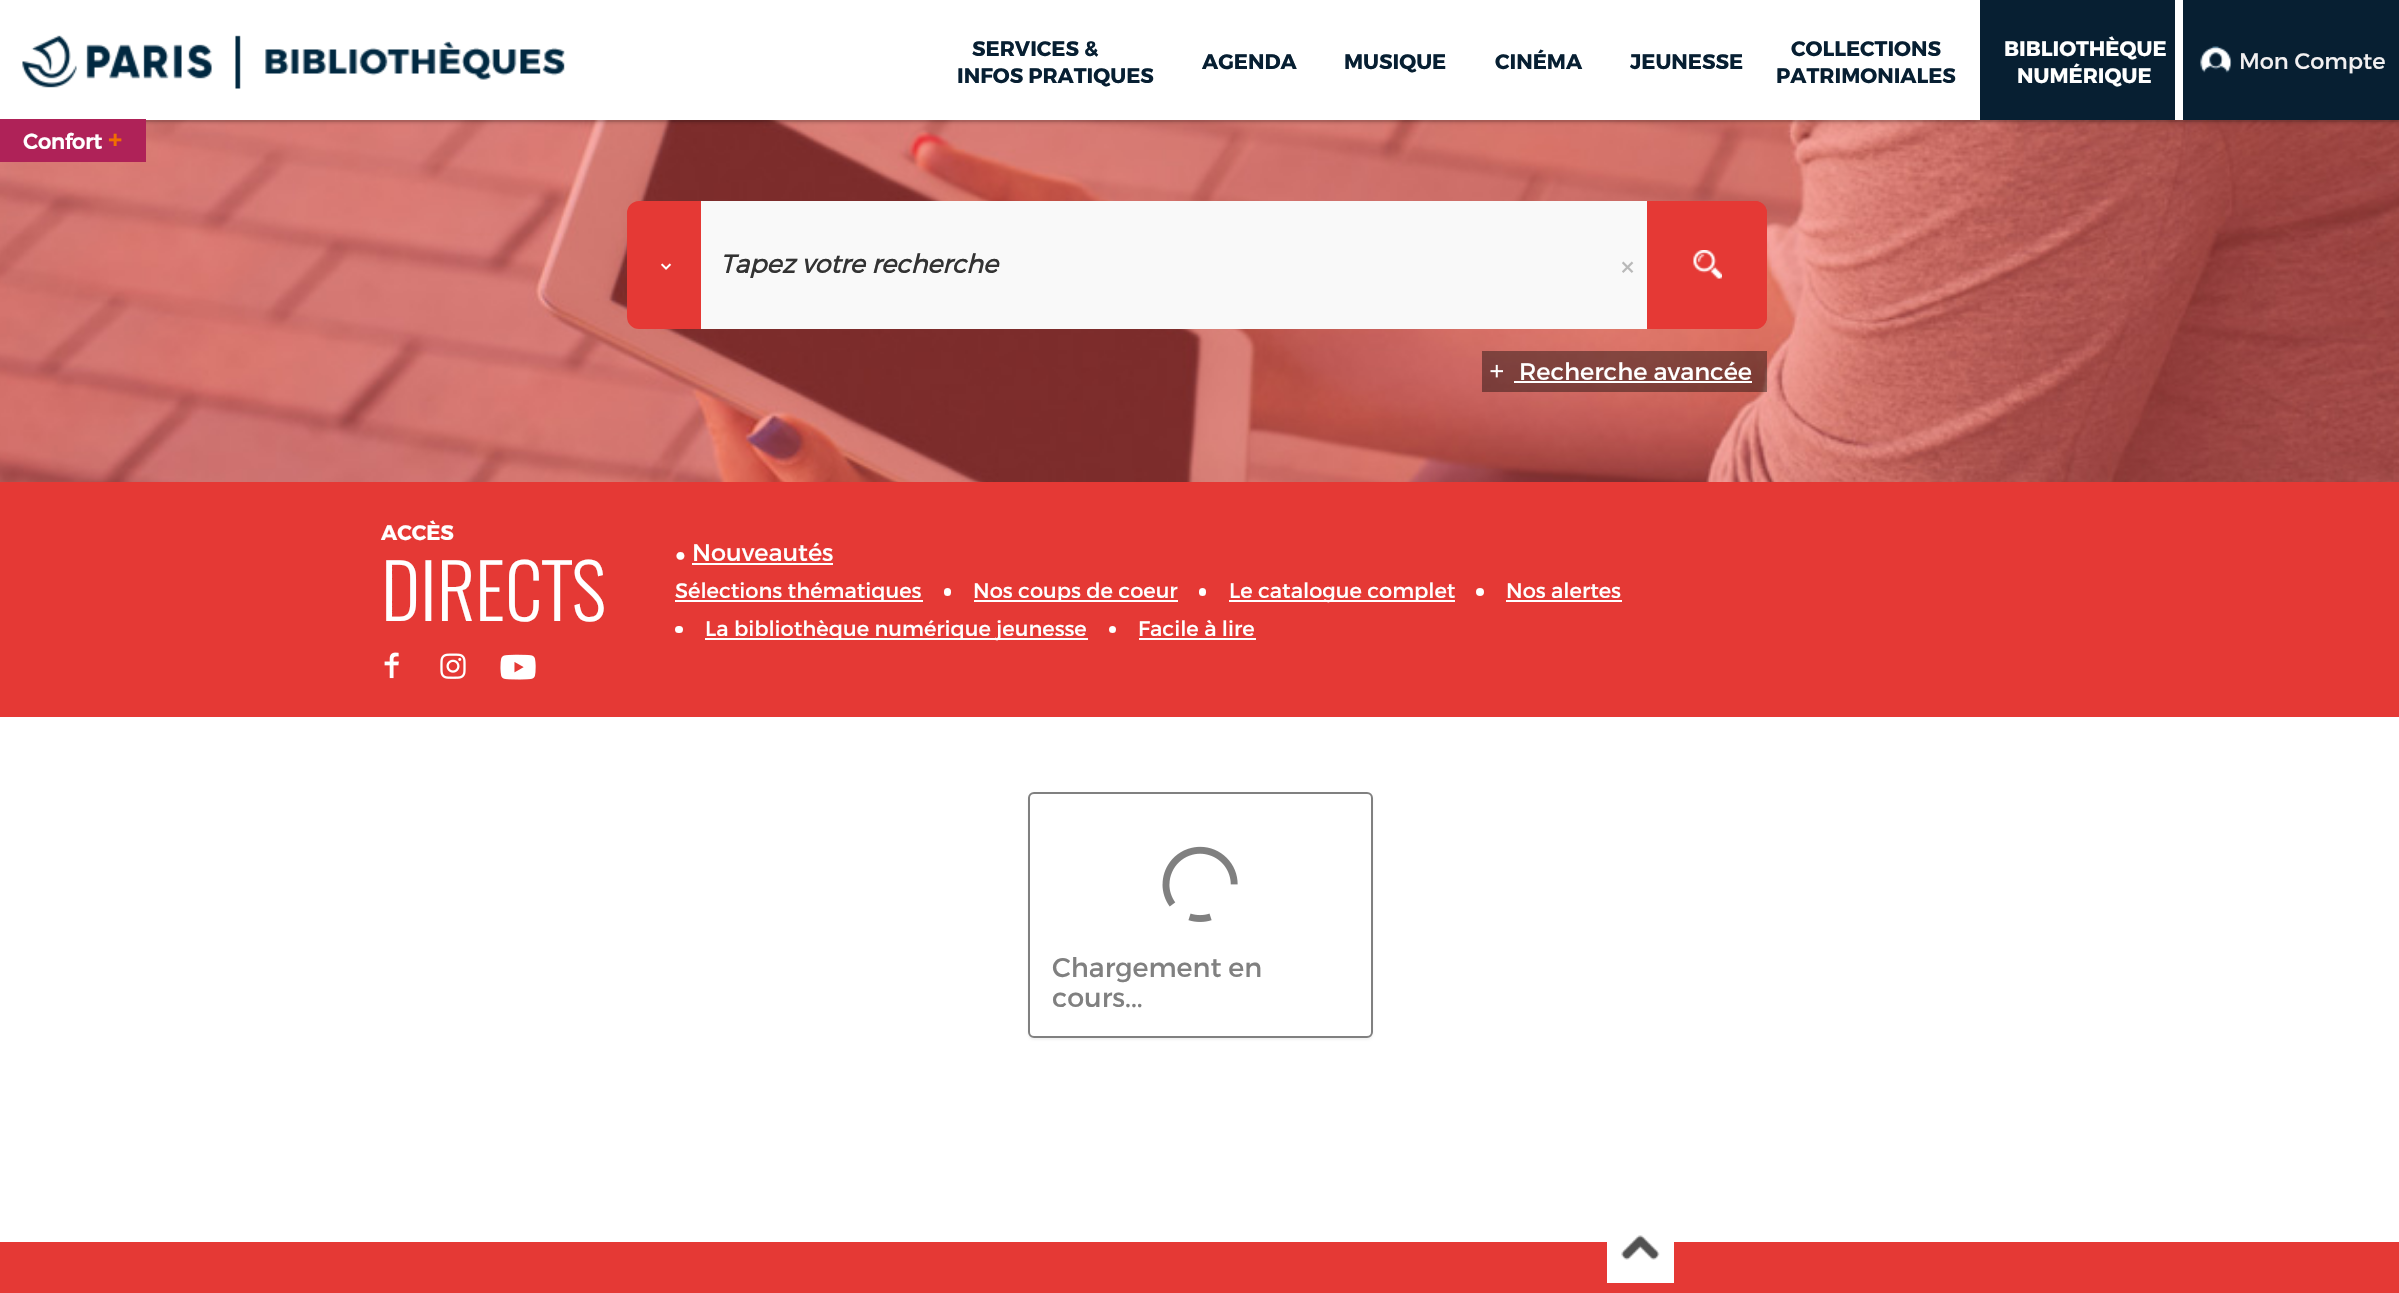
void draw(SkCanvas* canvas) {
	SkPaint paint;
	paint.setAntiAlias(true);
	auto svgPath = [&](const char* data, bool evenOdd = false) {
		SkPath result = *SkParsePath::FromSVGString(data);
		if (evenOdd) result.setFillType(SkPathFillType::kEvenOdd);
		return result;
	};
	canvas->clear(0xffffffff);
	canvas->drawImageRect(SkImages::DeferredFromEncodedData(SkData::MakeFromFileName("img1.png")), SkRect::MakeXYWH(0, 120, 2399, 362), SkSamplingOptions());
	paint.setStroke(true);
	paint.setStrokeWidth(2);
	paint.setColor(0x14000000);
	canvas->drawRect(SkRect::MakeXYWH(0, 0, 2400, 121), paint);
	paint.setStroke(false);
	paint.setColor(0x29000000);
	paint.setMaskFilter(SkMaskFilter::MakeBlur(kNormal_SkBlurStyle, 1.5));
	canvas->drawRect(SkRect::MakeXYWH(0, 3, 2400, 120), paint);
	paint.setMaskFilter(nullptr);
	paint.setColor(0xffffffff);
	canvas->drawRect(SkRect::MakeXYWH(0, 0, 2183, 120), paint);
	paint.setColor(0xffaf2258);
	canvas->drawRect(SkRect::MakeXYWH(0, 119, 146, 43), paint);
	SkFont f1(fontMgr->matchFamilyStyle("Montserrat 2", SkFontStyle::Bold()), 21);
	f1.setSubpixel(true);
	paint.setColor(0xffffffff);
	canvas->drawString("Confort", 23, 149, f1, paint);
	SkFont f2(fontMgr->matchFamilyStyle("Montserrat 2", SkFontStyle::Bold()), 27);
	f2.setSubpixel(true);
	paint.setColor(0xfff16e00);
	canvas->drawString("+", 108, 149, f2, paint);
	canvas->drawImageRect(SkImages::DeferredFromEncodedData(SkData::MakeFromFileName("img2.png")), SkRect::MakeXYWH(22, 35, 543, 54), SkSamplingOptions());
	SkFont f3(fontMgr->matchFamilyStyle("Montserrat", SkFontStyle::Bold()), 21);
	f3.setSubpixel(true);
	paint.setColor(0xff071f32);
	canvas->drawString("SERVICES &", 972, 56, f3, paint);
	canvas->drawString("INFOS PRATIQUES", 957, 83, f3, paint);
	canvas->drawString("AGENDA", 1202, 69, f3, paint);
	canvas->drawString("MUSIQUE", 1344, 69, f3, paint);
	canvas->drawString("CINÉMA", 1495, 69, f3, paint);
	canvas->drawString("JEUNESSE", 1630, 69, f3, paint);
	canvas->drawString("COLLECTIONS", 1791, 56, f3, paint);
	canvas->drawString("PATRIMONIALES", 1776, 83, f3, paint);
	canvas->drawRect(SkRect::MakeXYWH(1980, 0, 195, 120), paint);
	paint.setColor(0xffffffff);
	canvas->drawString("BIBLIOTHÈQUE", 2004, 56, f3, paint);
	canvas->drawString("NUMÉRIQUE", 2017, 83, f3, paint);
	paint.setColor(0xff071f32);
	canvas->drawRect(SkRect::MakeXYWH(2183, 0, 216, 120), paint);
	canvas->drawImageRect(SkImages::DeferredFromEncodedData(SkData::MakeFromFileName("img3.png")), SkRect::MakeXYWH(2200, 46, 32, 27), SkSamplingOptions());
	SkFont f4(fontMgr->matchFamilyStyle("Montserrat", SkFontStyle::Normal()), 22.5);
	f4.setSubpixel(true);
	paint.setColor(0xfff2f0f1);
	canvas->drawString("Mon Compte", 2239, 69, f4, paint);
	paint.setColor(0xffe53935);
	canvas->drawPath(svgPath("M639 202H701V328H639C633 328 628 323 628 317V213C628 207 633 202 639 202Z"), paint);
	paint.setStroke(true);
	canvas->drawPath(svgPath("M639 202H701V328H639C633 328 628 323 628 317V213C628 207 633 202 639 202Z"), paint);
	canvas->drawImageRect(SkImages::DeferredFromEncodedData(SkData::MakeFromFileName("img4.png")), SkRect::MakeXYWH(661, 263, 11, 7), SkSamplingOptions());
	paint.setStroke(false);
	paint.setColor(0xfff9f9f9);
	canvas->drawRect(SkRect::MakeXYWH(701, 201, 946, 128), paint);
	SkFont f5(fontMgr->matchFamilyStyle("Montserrat", SkFontStyle::BoldItalic()), 25.5);
	f5.setSubpixel(true);
	paint.setColor(0xff333333);
	canvas->drawString("Tapez votre recherche", 720, 273, f5, paint);
	canvas->drawImageRect(SkImages::DeferredFromEncodedData(SkData::MakeFromFileName("img5.png")), SkRect::MakeXYWH(1622, 261, 12, 12), SkSamplingOptions());
	paint.setColor(0xffe53935);
	canvas->drawPath(svgPath("M1647 201H1755C1761.5 201 1767 206.5 1767 213V317C1767 323.5 1761.5 329 1755 329H1647Z"), paint);
	canvas->drawImageRect(SkImages::DeferredFromEncodedData(SkData::MakeFromFileName("img6.png")), SkRect::MakeXYWH(1693, 250, 29, 29), SkSamplingOptions());
	paint.setStroke(true);
	canvas->drawPath(svgPath("M1648 202H1755C1761 202 1766 207 1766 213V317C1766 323 1761 328 1755 328H1648Z"), paint);
	paint.setStroke(false);
	paint.setColor(0x66000000);
	canvas->drawRect(SkRect::MakeXYWH(1482, 351, 285, 41), paint);
	SkFont f6(fontMgr->matchFamilyStyle("Montserrat", SkFontStyle::Normal()), 24);
	f6.setSubpixel(true);
	paint.setColor(0xffffffff);
	canvas->drawString("Recherche avancée", 1519, 380, f6, paint);
	canvas->drawImageRect(SkImages::DeferredFromEncodedData(SkData::MakeFromFileName("img7.png")), SkRect::MakeXYWH(1490, 364, 13, 14), SkSamplingOptions());
	canvas->drawRect(SkRect::MakeXYWH(1514, 381, 238, 2), paint);
	paint.setColor(0xffe53935);
	canvas->drawRect(SkRect::MakeXYWH(0, 482, 2399, 235), paint);
	paint.setColor(0xffffffff);
	canvas->drawString("ACCÈS", 381, 540, f3, paint);
	SkFont f7(fontMgr->matchFamilyStyle("Oswald", SkFontStyle(300, SkFontStyle::kNormal_Width, SkFontStyle::kUpright_Slant)), 75);
	f7.setSubpixel(true);
	canvas->drawString("DIRECTS", 381, 621, f7, paint);
	SkFont f8(fontMgr->matchFamilyStyle("Liberation Serif", SkFontStyle::Normal()), 18);
	f8.setSubpixel(true);
	canvas->drawString("●", 675, 561, f8, paint);
	canvas->drawString("Nouveautés", 692, 561, f6, paint);
	canvas->drawRect(SkRect::MakeXYWH(692, 563, 141, 2), paint);
	canvas->drawRect(SkRect::MakeXYWH(675, 600, 248, 2), paint);
	SkFont f9(fontMgr->matchFamilyStyle("Montserrat", SkFontStyle::Normal()), 21);
	f9.setSubpixel(true);
	canvas->drawString("Sélections thématiques", 675, 598, f9, paint);
	canvas->drawRoundRect(SkRect::MakeXYWH(944, 588, 7, 8), 3.5, 3.5, paint);
	canvas->drawRect(SkRect::MakeXYWH(974, 600, 204, 2), paint);
	canvas->drawString("Nos coups de coeur", 973, 598, f9, paint);
	canvas->drawRoundRect(SkRect::MakeXYWH(1199, 588, 7, 8), 3.5, 3.5, paint);
	canvas->drawRect(SkRect::MakeXYWH(1229, 600, 226, 2), paint);
	canvas->drawString("Le catalogue complet", 1229, 598, f9, paint);
	canvas->drawCircle(1480, 592, 4, paint);
	canvas->drawString("Nos alertes", 1506, 598, f9, paint);
	canvas->drawRect(SkRect::MakeXYWH(1506, 600, 116, 2), paint);
	canvas->drawRoundRect(SkRect::MakeXYWH(675, 626, 8, 7), 3.5, 3.5, paint);
	canvas->drawRect(SkRect::MakeXYWH(705, 638, 383, 2), paint);
	canvas->drawString("La bibliothèque numérique jeunesse", 705, 636, f9, paint);
	canvas->drawCircle(1112.5, 629.5, 3.5, paint);
	canvas->drawString("Facile à lire", 1138, 636, f9, paint);
	canvas->drawRect(SkRect::MakeXYWH(1139, 638, 117, 2), paint);
	canvas->drawImageRect(SkImages::DeferredFromEncodedData(SkData::MakeFromFileName("img8.png")), SkRect::MakeXYWH(384, 652, 15, 27), SkSamplingOptions());
	canvas->drawImageRect(SkImages::DeferredFromEncodedData(SkData::MakeFromFileName("img9.png")), SkRect::MakeXYWH(440, 653, 26, 26), SkSamplingOptions());
	canvas->drawImageRect(SkImages::DeferredFromEncodedData(SkData::MakeFromFileName("img10.png")), SkRect::MakeXYWH(500, 654, 36, 26), SkSamplingOptions());
	paint.setColor(0x0d000000);
	paint.setMaskFilter(SkMaskFilter::MakeBlur(kNormal_SkBlurStyle, 1));
	canvas->drawRoundRect(SkRect::MakeXYWH(1028, 794, 345, 246), 6, 6, paint);
	paint.setMaskFilter(nullptr);
	paint.setColor(0xffffffff);
	canvas->drawRoundRect(SkRect::MakeXYWH(1029, 793, 343, 244), 5, 5, paint);
	paint.setStroke(true);
	paint.setColor(0xff808080);
	canvas->drawRoundRect(SkRect::MakeXYWH(1029, 793, 343, 244), 5, 5, paint);
	canvas->drawImageRect(SkImages::DeferredFromEncodedData(SkData::MakeFromFileName("img11.png")), SkRect::MakeXYWH(1162, 846, 76, 76), SkSamplingOptions());
	SkFont f10(fontMgr->matchFamilyStyle("Montserrat", SkFontStyle::Normal()), 27);
	f10.setSubpixel(true);
	paint.setStroke(false);
	canvas->drawString("Chargement en", 1052, 977, f10, paint);
	canvas->drawString("cours...", 1052, 1007, f10, paint);
	paint.setColor(0xffe53935);
	canvas->drawRect(SkRect::MakeXYWH(0, 1242, 2399, 51), paint);
	paint.setColor(0xffffffff);
	canvas->drawRect(SkRect::MakeXYWH(1607, 1242, 67, 41), paint);
	canvas->drawImageRect(SkImages::DeferredFromEncodedData(SkData::MakeFromFileName("img12.png")), SkRect::MakeXYWH(1621, 1235, 39, 25), SkSamplingOptions());
}
